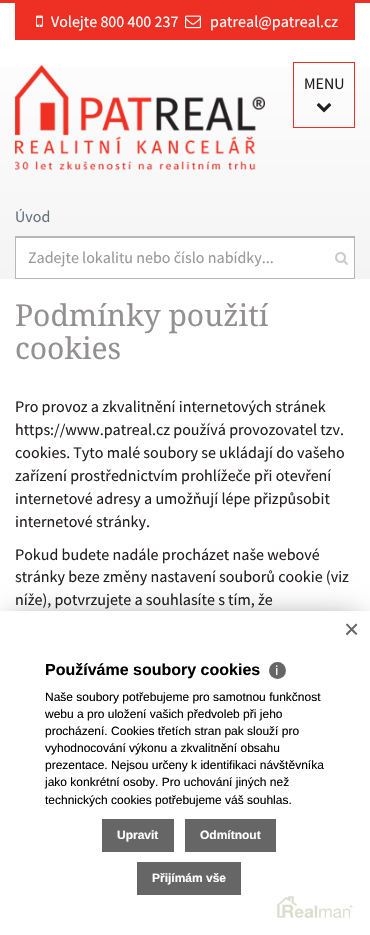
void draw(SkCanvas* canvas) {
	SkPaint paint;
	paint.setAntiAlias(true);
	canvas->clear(0xffffffff);
	paint.setColor(0xffee3024);
	canvas->drawRect(SkRect::MakeXYWH(0, 0, 370, 3), paint);
	{
		const SkColor colors[] = {0xffffffff, 0xfff4f4f4};
		const float stops[] = {0, 1};
		const SkPoint ends[] = {{185, 3}, {185, 279}};
		paint.setShader(SkGradientShader::MakeLinear(ends, colors, stops, 2, SkTileMode::kClamp));
		paint.setAlpha(255);
	}
	canvas->drawRect(SkRect::MakeXYWH(0, 66, 370, 213), paint);
	paint.setShader(nullptr);
	paint.setColor(0xffee3024);
	canvas->drawRect(SkRect::MakeXYWH(15, 3, 340, 37), paint);
	canvas->drawImageRect(SkImages::DeferredFromEncodedData(SkData::MakeFromFileName("img1.png")), SkRect::MakeXYWH(36, 15, 7, 12), SkSamplingOptions());
	SkFont f1(fontMgr->matchFamilyStyle("Source Sans Pro", SkFontStyle::Normal()), 16);
	f1.setSubpixel(true);
	paint.setColor(0xffffffff);
	canvas->drawString("Volejte 800 400 237", 51, 27, f1, paint);
	canvas->drawImageRect(SkImages::DeferredFromEncodedData(SkData::MakeFromFileName("img2.png")), SkRect::MakeXYWH(185, 15, 16, 14), SkSamplingOptions());
	canvas->drawString("patreal@patreal.cz", 210, 27, f1, paint);
	canvas->drawImageRect(SkImages::DeferredFromEncodedData(SkData::MakeFromFileName("img3.png")), SkRect::MakeXYWH(15, 65, 250, 105), SkSamplingOptions());
	paint.setStroke(true);
	paint.setStrokeWidth(1);
	paint.setColor(0xffee3024);
	canvas->drawRect(SkRect::MakeXYWH(293.5, 62.5, 61, 65), paint);
	paint.setStroke(false);
	paint.setColor(0xff231f20);
	canvas->drawString("MENU", 304, 89, f1, paint);
	canvas->drawImageRect(SkImages::DeferredFromEncodedData(SkData::MakeFromFileName("img4.png")), SkRect::MakeXYWH(316, 103, 16, 10), SkSamplingOptions());
	paint.setColor(0xffb7b7b7);
	canvas->drawRect(SkRect::MakeXYWH(15, 236, 340, 1), paint);
	paint.setColor(0xff65727a);
	canvas->drawString("Úvod", 15, 222, f1, paint);
	paint.setColor(0xffffffff);
	canvas->drawRect(SkRect::MakeXYWH(15.5, 237.5, 339, 41), paint);
	paint.setStroke(true);
	paint.setColor(0xffb7b7b7);
	canvas->drawRect(SkRect::MakeXYWH(15.5, 237.5, 339, 41), paint);
	paint.setStroke(false);
	paint.setColor(0xff999999);
	canvas->drawString("Zadejte lokalitu nebo číslo nabídky...", 28, 263, f1, paint);
	canvas->drawImageRect(SkImages::DeferredFromEncodedData(SkData::MakeFromFileName("img5.png")), SkRect::MakeXYWH(335, 252, 13, 13), SkSamplingOptions());
	SkFont f2(fontMgr->matchFamilyStyle("Droid Serif", SkFontStyle::Normal()), 30);
	f2.setSubpixel(true);
	paint.setColor(0xff949091);
	canvas->drawString("Podmínky použití", 15, 326, f2, paint);
	canvas->drawString("cookies", 15, 359, f2, paint);
	paint.setColor(0xff231f20);
	canvas->drawString("Pro provoz a zkvalitnění internetových stránek", 15, 412, f1, paint);
	canvas->drawString("https://www.patreal.cz používá provozovatel tzv.", 15, 435, f1, paint);
	canvas->drawString("cookies. Tyto malé soubory se ukládají do vašeho", 15, 458, f1, paint);
	canvas->drawString("zařízení prostřednictvím prohlížeče při otevření", 15, 481, f1, paint);
	canvas->drawString("internetové adresy a umožňují lépe přizpůsobit", 15, 504, f1, paint);
	canvas->drawString("internetové stránky.", 15, 527, f1, paint);
	canvas->drawString("Pokud budete nadále procházet naše webové", 15, 560, f1, paint);
	canvas->drawString("stránky beze změny nastavení souborů cookie (viz", 15, 582, f1, paint);
	canvas->drawString("níže), potvrzujete a souhlasíte s tím, že", 15, 605, f1, paint);
	paint.setColor(0x80000000);
	paint.setMaskFilter(SkMaskFilter::MakeBlur(kNormal_SkBlurStyle, 15));
	canvas->drawRect(SkRect::MakeXYWH(10, 621, 350, 304), paint);
	paint.setMaskFilter(nullptr);
	paint.setColor(0xffffffff);
	canvas->drawRect(SkRect::MakeXYWH(0, 611, 370, 324), paint);
	canvas->drawImageRect(SkImages::DeferredFromEncodedData(SkData::MakeFromFileName("img6.png")), SkRect::MakeXYWH(277, 896, 76, 22), SkSamplingOptions());
	SkFont f3(fontMgr->matchFamilyStyle("Liberation Sans", SkFontStyle::Normal()), 26);
	f3.setSubpixel(true);
	paint.setColor(0xff666666);
	canvas->drawString("×", 344, 638, f3, paint);
	SkFont f4(fontMgr->matchFamilyStyle("Liberation Sans", SkFontStyle::Bold()), 16);
	f4.setSubpixel(true);
	paint.setColor(0xff000000);
	canvas->drawString("Používáme soubory cookies", 45, 675, f4, paint);
	paint.setColor(0xff666666);
	canvas->drawCircle(277.5, 670.5, 8.5, paint);
	SkFont f5(fontMgr->matchFamilyStyle("Noto Sans", SkFontStyle::Normal()), 13);
	f5.setSubpixel(true);
	paint.setColor(0xffffffff);
	canvas->drawString("ℹ", 275, 675, f5, paint);
	SkFont f6(fontMgr->matchFamilyStyle("Liberation Sans", SkFontStyle::Normal()), 12);
	f6.setSubpixel(true);
	paint.setColor(0xff000000);
	canvas->drawString("Naše soubory potřebujeme pro samotnou funkčnost", 45, 701, f6, paint);
	canvas->drawString("webu a pro uložení vašich předvoleb při jeho", 45, 718, f6, paint);
	canvas->drawString("procházení. Cookies třetích stran pak slouží pro", 45, 735, f6, paint);
	canvas->drawString("vyhodnocování výkonu a zkvalitnění obsahu", 45, 752, f6, paint);
	canvas->drawString("prezentace. Nejsou určeny k identifikaci návštěvníka", 45, 769, f6, paint);
	canvas->drawString("jako konkrétní osoby. Pro uchování jiných než", 45, 786, f6, paint);
	canvas->drawString("technických cookies potřebujeme váš souhlas.", 45, 804, f6, paint);
	paint.setColor(0xff666666);
	canvas->drawRect(SkRect::MakeXYWH(102, 819, 72, 33), paint);
	SkFont f7(fontMgr->matchFamilyStyle("Liberation Sans", SkFontStyle::Bold()), 12);
	f7.setSubpixel(true);
	paint.setColor(0xffffffff);
	canvas->drawString("Upravit", 117, 839, f7, paint);
	paint.setColor(0xff666666);
	canvas->drawRect(SkRect::MakeXYWH(185, 819, 91, 33), paint);
	paint.setColor(0xffffffff);
	canvas->drawString("Odmítnout", 200, 839, f7, paint);
	paint.setColor(0xff666666);
	canvas->drawRect(SkRect::MakeXYWH(137, 862, 104, 33), paint);
	paint.setColor(0xffffffff);
	canvas->drawString("Přijímám vše", 152, 882, f7, paint);
}
